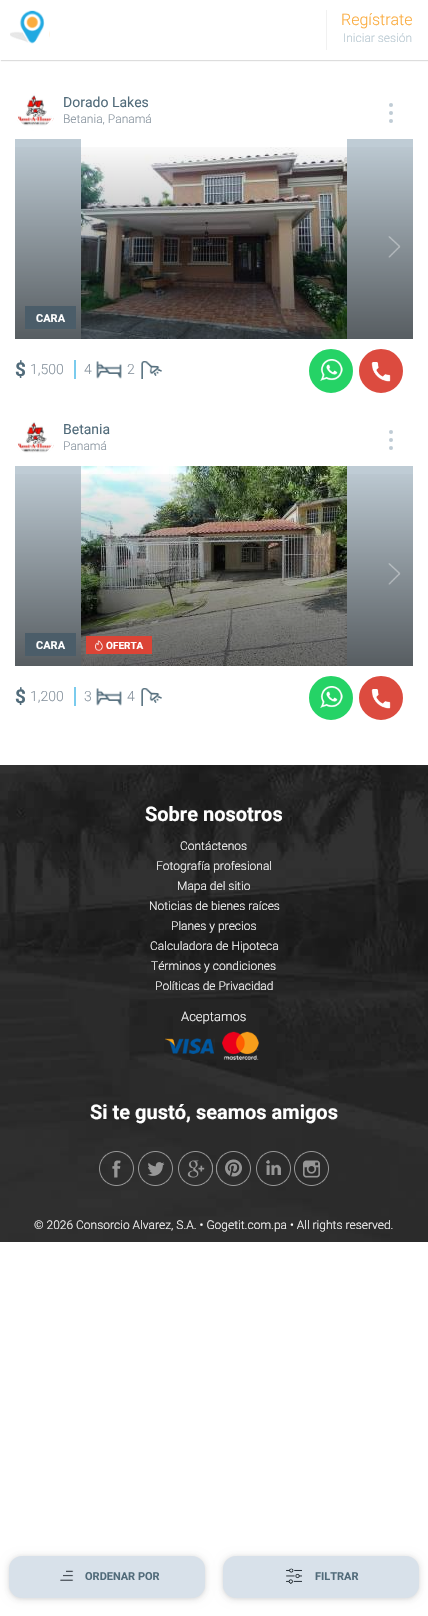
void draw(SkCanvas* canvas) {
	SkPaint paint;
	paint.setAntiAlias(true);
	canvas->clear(0xffffffff);
	canvas->save();
	canvas->clipRect(SkRect::MakeXYWH(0, 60, 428, 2));
	paint.setColor(0xffdddddd);
	paint.setMaskFilter(SkMaskFilter::MakeBlur(kNormal_SkBlurStyle, 0.5));
	canvas->drawRect(SkRect::MakeXYWH(1, 1, 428, 60), paint);
	paint.setMaskFilter(nullptr);
	canvas->restore();
	canvas->drawImageRect(SkImages::DeferredFromEncodedData(SkData::MakeFromFileName("img1.png")), SkRect::MakeXYWH(10, 10, 40, 34), SkSamplingOptions());
	paint.setColor(0xfff1f1f1);
	canvas->drawRect(SkRect::MakeXYWH(326, 10, 1, 40), paint);
	SkFont f1(fontMgr->matchFamilyStyle("Roboto", SkFontStyle(300, SkFontStyle::kNormal_Width, SkFontStyle::kUpright_Slant)), 16);
	f1.setSubpixel(true);
	paint.setColor(0xfffbac3f);
	canvas->drawString("Regístrate", 341, 25, f1, paint);
	SkFont f2(fontMgr->matchFamilyStyle("Roboto", SkFontStyle(300, SkFontStyle::kNormal_Width, SkFontStyle::kUpright_Slant)), 12);
	f2.setSubpixel(true);
	paint.setColor(0xffb9c9d2);
	canvas->drawString("Iniciar sesión", 343, 42, f2, paint);
	canvas->drawImageRect(SkImages::DeferredFromEncodedData(SkData::MakeFromFileName("img2.png")), SkRect::MakeXYWH(15, 91, 40, 40), SkSamplingOptions());
	paint.setStroke(true);
	paint.setStrokeWidth(2);
	paint.setColor(0xffffffff);
	canvas->drawCircle(35, 111, 19, paint);
	SkFont f3(fontMgr->matchFamilyStyle("Roboto", SkFontStyle::Normal()), 14);
	f3.setSubpixel(true);
	paint.setStroke(false);
	paint.setColor(0xff516b7a);
	canvas->drawString("Dorado Lakes", 63, 107, f3, paint);
	paint.setColor(0xff86929d);
	canvas->drawString("Betania, Panamá", 63, 123, f2, paint);
	paint.setColor(0xffbfccd5);
	canvas->drawCircle(391, 113, 2, paint);
	canvas->drawCircle(391, 105, 2, paint);
	canvas->drawCircle(391, 121, 2, paint);
	canvas->drawRect(SkRect::MakeXYWH(15, 139, 398, 200), paint);
	canvas->drawImageRect(SkImages::DeferredFromEncodedData(SkData::MakeFromFileName("img3.png")), SkRect::MakeXYWH(81, 139, 266, 200), SkSamplingOptions());
	{
		const SkColor colors[] = {0x00000000, 0x99000000};
		const float stops[] = {0, 1};
		const SkPoint ends[] = {{214, 139}, {214, 359}};
		paint.setShader(SkGradientShader::MakeLinear(ends, colors, stops, 2, SkTileMode::kClamp));
		paint.setAlpha(255);
	}
	canvas->drawRect(SkRect::MakeXYWH(15, 147, 398, 192), paint);
	canvas->drawImageRect(SkImages::DeferredFromEncodedData(SkData::MakeFromFileName("img4.png")), SkRect::MakeXYWH(388, 236, 13, 22), SkSamplingOptions());
	paint.setShader(nullptr);
	paint.setColor(0xff4b5d69);
	canvas->drawRect(SkRect::MakeXYWH(25, 306, 51, 23), paint);
	SkFont f4(fontMgr->matchFamilyStyle("Roboto", SkFontStyle::Bold()), 11);
	f4.setSubpixel(true);
	paint.setColor(0xffffffff);
	canvas->drawString("CARA", 36, 322, f4, paint);
	SkFont f5(fontMgr->matchFamilyStyle("Roboto", SkFontStyle::Bold()), 19);
	f5.setSubpixel(true);
	paint.setColor(0xff516b7a);
	canvas->drawString("$", 15, 376, f5, paint);
	SkFont f6(fontMgr->matchFamilyStyle("Roboto", SkFontStyle(300, SkFontStyle::kNormal_Width, SkFontStyle::kUpright_Slant)), 14);
	f6.setSubpixel(true);
	paint.setColor(0xff86929d);
	canvas->drawString("1,500", 30, 374, f6, paint);
	paint.setColor(0xff7acbed);
	canvas->drawRect(SkRect::MakeXYWH(74, 360, 2, 19), paint);
	paint.setColor(0xff86929d);
	canvas->drawString("4", 84, 374, f6, paint);
	canvas->drawImageRect(SkImages::DeferredFromEncodedData(SkData::MakeFromFileName("img5.png")), SkRect::MakeXYWH(96, 361, 26, 18), SkSamplingOptions());
	canvas->drawString("2", 127, 374, f6, paint);
	canvas->drawImageRect(SkImages::DeferredFromEncodedData(SkData::MakeFromFileName("img6.png")), SkRect::MakeXYWH(141, 361, 21, 18), SkSamplingOptions());
	paint.setColor(0xff25d366);
	canvas->drawCircle(331, 371, 21, paint);
	paint.setStroke(true);
	canvas->drawCircle(331, 371, 21, paint);
	canvas->drawImageRect(SkImages::DeferredFromEncodedData(SkData::MakeFromFileName("img7.png")), SkRect::MakeXYWH(320, 359, 23, 22), SkSamplingOptions());
	paint.setStroke(false);
	paint.setColor(0xffdc4b3f);
	canvas->drawCircle(381, 371, 21, paint);
	paint.setStroke(true);
	canvas->drawCircle(381, 371, 21, paint);
	canvas->drawImageRect(SkImages::DeferredFromEncodedData(SkData::MakeFromFileName("img8.png")), SkRect::MakeXYWH(371, 362, 20, 20), SkSamplingOptions());
	canvas->drawImageRect(SkImages::DeferredFromEncodedData(SkData::MakeFromFileName("img9.png")), SkRect::MakeXYWH(15, 418, 40, 40), SkSamplingOptions());
	paint.setColor(0xffffffff);
	canvas->drawCircle(35, 438, 19, paint);
	paint.setStroke(false);
	paint.setColor(0xff516b7a);
	canvas->drawString("Betania", 63, 434, f3, paint);
	paint.setColor(0xff86929d);
	canvas->drawString("Panamá", 63, 450, f2, paint);
	paint.setColor(0xffbfccd5);
	canvas->drawCircle(391, 440, 2, paint);
	canvas->drawCircle(391, 432, 2, paint);
	canvas->drawCircle(391, 448, 2, paint);
	canvas->drawRect(SkRect::MakeXYWH(15, 466, 398, 200), paint);
	canvas->drawImageRect(SkImages::DeferredFromEncodedData(SkData::MakeFromFileName("img10.png")), SkRect::MakeXYWH(81, 466, 266, 200), SkSamplingOptions());
	{
		const SkColor colors[] = {0x00000000, 0x99000000};
		const float stops[] = {0, 1};
		const SkPoint ends[] = {{214, 466}, {214, 686}};
		paint.setShader(SkGradientShader::MakeLinear(ends, colors, stops, 2, SkTileMode::kClamp));
		paint.setAlpha(255);
	}
	canvas->drawRect(SkRect::MakeXYWH(15, 474, 398, 192), paint);
	canvas->drawImageRect(SkImages::DeferredFromEncodedData(SkData::MakeFromFileName("img4.png")), SkRect::MakeXYWH(388, 563, 13, 22), SkSamplingOptions());
	paint.setShader(nullptr);
	paint.setColor(0xff4b5d69);
	canvas->drawRect(SkRect::MakeXYWH(25, 633, 51, 23), paint);
	paint.setColor(0xffffffff);
	canvas->drawString("CARA", 36, 649, f4, paint);
	paint.setColor(0xffdb4436);
	canvas->drawRect(SkRect::MakeXYWH(86, 636, 66, 18), paint);
	canvas->drawImageRect(SkImages::DeferredFromEncodedData(SkData::MakeFromFileName("img11.png")), SkRect::MakeXYWH(95, 640, 8, 11), SkSamplingOptions());
	SkFont f7(fontMgr->matchFamilyStyle("Roboto", SkFontStyle::Bold()), 10);
	f7.setSubpixel(true);
	paint.setColor(0xffffffff);
	canvas->drawString("OFERTA", 106, 649, f7, paint);
	paint.setColor(0xff516b7a);
	canvas->drawString("$", 15, 703, f5, paint);
	paint.setColor(0xff86929d);
	canvas->drawString("1,200", 30, 701, f6, paint);
	paint.setColor(0xff7acbed);
	canvas->drawRect(SkRect::MakeXYWH(74, 687, 2, 19), paint);
	paint.setColor(0xff86929d);
	canvas->drawString("3", 84, 701, f6, paint);
	canvas->drawImageRect(SkImages::DeferredFromEncodedData(SkData::MakeFromFileName("img5.png")), SkRect::MakeXYWH(96, 688, 26, 18), SkSamplingOptions());
	canvas->drawString("4", 127, 701, f6, paint);
	canvas->drawImageRect(SkImages::DeferredFromEncodedData(SkData::MakeFromFileName("img6.png")), SkRect::MakeXYWH(141, 688, 21, 18), SkSamplingOptions());
	paint.setColor(0xff25d366);
	canvas->drawCircle(331, 698, 21, paint);
	paint.setStroke(true);
	canvas->drawCircle(331, 698, 21, paint);
	canvas->drawImageRect(SkImages::DeferredFromEncodedData(SkData::MakeFromFileName("img7.png")), SkRect::MakeXYWH(320, 686, 23, 22), SkSamplingOptions());
	paint.setStroke(false);
	paint.setColor(0xffdc4b3f);
	canvas->drawCircle(381, 698, 21, paint);
	paint.setStroke(true);
	canvas->drawCircle(381, 698, 21, paint);
	canvas->drawImageRect(SkImages::DeferredFromEncodedData(SkData::MakeFromFileName("img8.png")), SkRect::MakeXYWH(371, 689, 20, 20), SkSamplingOptions());
	canvas->drawImageRect(SkImages::DeferredFromEncodedData(SkData::MakeFromFileName("img12.png")), SkRect::MakeXYWH(0, 765, 428, 477), SkSamplingOptions());
	SkFont f8(fontMgr->matchFamilyStyle("Roboto", SkFontStyle::Bold()), 20);
	f8.setSubpixel(true);
	paint.setStroke(false);
	paint.setColor(0xffffffff);
	canvas->drawString("Sobre nosotros", 145, 821, f8, paint);
	canvas->drawString("Contáctenos", 180, 850, f2, paint);
	canvas->drawString("Fotografía profesional", 156, 870, f2, paint);
	canvas->drawString("Mapa del sitio", 177, 890, f2, paint);
	canvas->drawString("Noticias de bienes raíces", 149, 910, f2, paint);
	canvas->drawString("Planes y precios", 171, 930, f2, paint);
	canvas->drawString("Calculadora de Hipoteca", 150, 950, f2, paint);
	canvas->drawString("Términos y condiciones", 151, 970, f2, paint);
	canvas->drawString("Políticas de Privacidad", 155, 990, f2, paint);
	SkFont f9(fontMgr->matchFamilyStyle("Roboto", SkFontStyle(300, SkFontStyle::kNormal_Width, SkFontStyle::kUpright_Slant)), 13);
	f9.setSubpixel(true);
	canvas->drawString("Aceptamos", 181, 1021, f9, paint);
	canvas->drawImageRect(SkImages::DeferredFromEncodedData(SkData::MakeFromFileName("img13.png")), SkRect::MakeXYWH(165, 1031, 94, 29), SkSamplingOptions());
	canvas->drawString("Si te gustó, seamos amigos", 90, 1119, f8, paint);
	canvas->drawImageRect(SkImages::DeferredFromEncodedData(SkData::MakeFromFileName("img14.png")), SkRect::MakeXYWH(99, 1151, 35, 35), SkSamplingOptions());
	canvas->drawImageRect(SkImages::DeferredFromEncodedData(SkData::MakeFromFileName("img15.png")), SkRect::MakeXYWH(138, 1151, 35, 35), SkSamplingOptions());
	canvas->drawImageRect(SkImages::DeferredFromEncodedData(SkData::MakeFromFileName("img16.png")), SkRect::MakeXYWH(178, 1151, 35, 35), SkSamplingOptions());
	canvas->drawImageRect(SkImages::DeferredFromEncodedData(SkData::MakeFromFileName("img17.png")), SkRect::MakeXYWH(216, 1151, 35, 35), SkSamplingOptions());
	canvas->drawImageRect(SkImages::DeferredFromEncodedData(SkData::MakeFromFileName("img18.png")), SkRect::MakeXYWH(256, 1151, 35, 35), SkSamplingOptions());
	canvas->drawImageRect(SkImages::DeferredFromEncodedData(SkData::MakeFromFileName("img19.png")), SkRect::MakeXYWH(294, 1151, 35, 35), SkSamplingOptions());
	canvas->drawString("© 2026 Consorcio Alvarez, S.A. • Gogetit.com.pa • All rights reserved.", 34, 1229, f2, paint);
	paint.setColor(0x14000000);
	paint.setMaskFilter(SkMaskFilter::MakeBlur(kNormal_SkBlurStyle, 5));
	canvas->drawRoundRect(SkRect::MakeXYWH(9, 1557, 196, 42), 13, 13, paint);
	paint.setMaskFilter(nullptr);
	paint.setColor(0x0f000000);
	paint.setMaskFilter(SkMaskFilter::MakeBlur(kNormal_SkBlurStyle, 2));
	canvas->drawRoundRect(SkRect::MakeXYWH(9, 1556, 196, 42), 13, 13, paint);
	paint.setMaskFilter(nullptr);
	paint.setMaskFilter(SkMaskFilter::MakeBlur(kNormal_SkBlurStyle, 2));
	canvas->drawRoundRect(SkRect::MakeXYWH(10, 1559, 194, 40), 12, 12, paint);
	paint.setMaskFilter(nullptr);
	paint.setColor(0xffd8e1ea);
	canvas->drawRoundRect(SkRect::MakeXYWH(9, 1556, 196, 42), 13, 13, paint);
	canvas->drawImageRect(SkImages::DeferredFromEncodedData(SkData::MakeFromFileName("img20.png")), SkRect::MakeXYWH(60, 1570, 14, 11), SkSamplingOptions());
	paint.setColor(0xff516b7a);
	canvas->drawString("ORDENAR POR", 85, 1580, f4, paint);
	paint.setColor(0x14000000);
	paint.setMaskFilter(SkMaskFilter::MakeBlur(kNormal_SkBlurStyle, 5));
	canvas->drawRoundRect(SkRect::MakeXYWH(223, 1557, 196, 42), 13, 13, paint);
	paint.setMaskFilter(nullptr);
	paint.setColor(0x0f000000);
	paint.setMaskFilter(SkMaskFilter::MakeBlur(kNormal_SkBlurStyle, 2));
	canvas->drawRoundRect(SkRect::MakeXYWH(223, 1556, 196, 42), 13, 13, paint);
	paint.setMaskFilter(nullptr);
	paint.setMaskFilter(SkMaskFilter::MakeBlur(kNormal_SkBlurStyle, 2));
	canvas->drawRoundRect(SkRect::MakeXYWH(224, 1559, 194, 40), 12, 12, paint);
	paint.setMaskFilter(nullptr);
	paint.setColor(0xffd8e1ea);
	canvas->drawRoundRect(SkRect::MakeXYWH(223, 1556, 196, 42), 13, 13, paint);
	canvas->drawImageRect(SkImages::DeferredFromEncodedData(SkData::MakeFromFileName("img21.png")), SkRect::MakeXYWH(286, 1568, 16, 16), SkSamplingOptions());
	paint.setColor(0xff516b7a);
	canvas->drawString("FILTRAR", 315, 1580, f4, paint);
}
